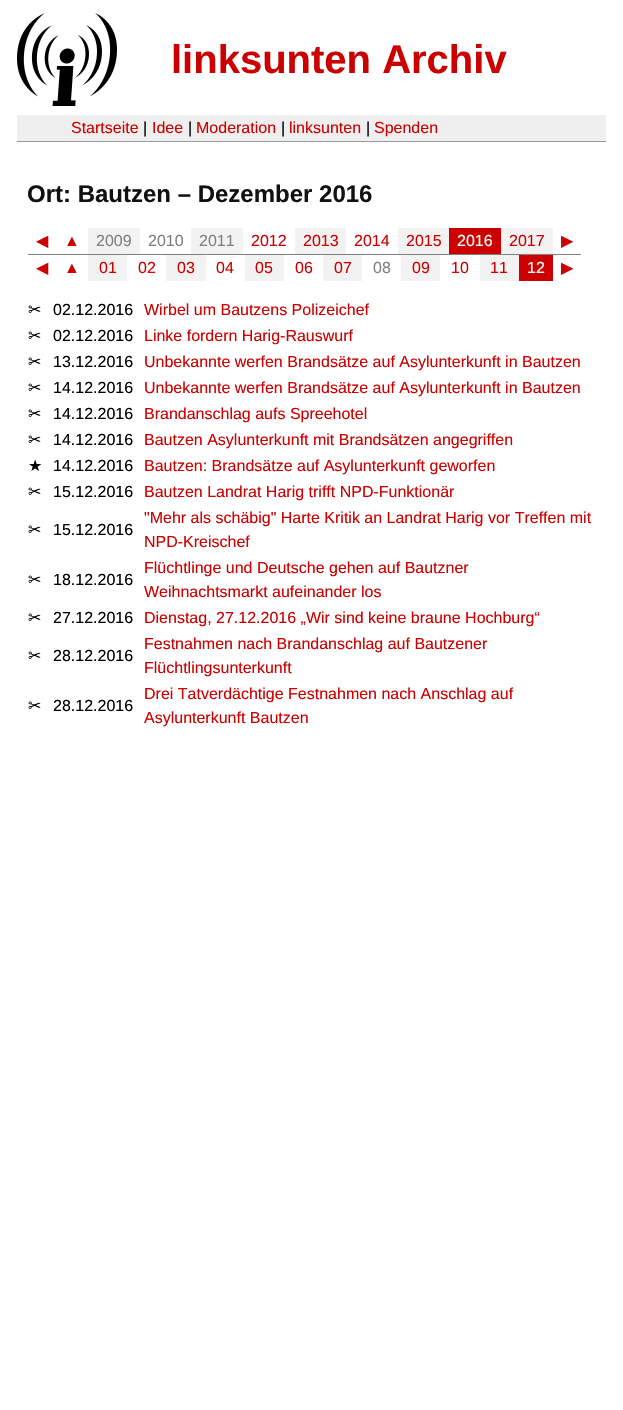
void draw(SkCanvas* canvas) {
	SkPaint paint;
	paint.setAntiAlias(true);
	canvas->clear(0xffffffff);
	canvas->drawImageRect(SkImages::DeferredFromEncodedData(SkData::MakeFromFileName("img1.png")), SkRect::MakeXYWH(17, 13, 100, 93), SkSamplingOptions());
	SkFont f1(fontMgr->matchFamilyStyle("Liberation Sans", SkFontStyle::Bold()), 40);
	f1.setSubpixel(true);
	paint.setColor(0xffcc0000);
	canvas->drawString("linksunten Archiv", 171, 73, f1, paint);
	paint.setColor(0xffefefef);
	canvas->drawRect(SkRect::MakeXYWH(17, 115, 589, 26), paint);
	paint.setColor(0xff999999);
	canvas->drawRect(SkRect::MakeXYWH(17, 141, 589, 1), paint);
	SkFont f2(fontMgr->matchFamilyStyle("Liberation Sans", SkFontStyle::Normal()), 16);
	f2.setSubpixel(true);
	paint.setColor(0xffcc0000);
	canvas->drawString("Startseite", 71, 133, f2, paint);
	paint.setColor(0xff000000);
	canvas->drawString("|", 143, 133, f2, paint);
	paint.setColor(0xffcc0000);
	canvas->drawString("Idee", 152, 133, f2, paint);
	paint.setColor(0xff000000);
	canvas->drawString("|", 188, 133, f2, paint);
	paint.setColor(0xffcc0000);
	canvas->drawString("Moderation", 196, 133, f2, paint);
	paint.setColor(0xff000000);
	canvas->drawString("|", 281, 133, f2, paint);
	paint.setColor(0xffcc0000);
	canvas->drawString("linksunten", 289, 133, f2, paint);
	paint.setColor(0xff000000);
	canvas->drawString("|", 366, 133, f2, paint);
	paint.setColor(0xffcc0000);
	canvas->drawString("Spenden", 374, 133, f2, paint);
	SkFont f3(fontMgr->matchFamilyStyle("Liberation Sans", SkFontStyle::Bold()), 24);
	f3.setSubpixel(true);
	paint.setColor(0xff111111);
	canvas->drawString("Ort: Bautzen – Dezember 2016", 27, 202, f3, paint);
	paint.setColor(0xff808080);
	canvas->drawRect(SkRect::MakeXYWH(28, 254, 553, 1), paint);
	SkFont f4(fontMgr->matchFamilyStyle("DejaVu Sans", SkFontStyle::Normal()), 16);
	f4.setSubpixel(true);
	paint.setColor(0xffcc0000);
	canvas->drawString("◀", 36, 246, f4, paint);
	canvas->drawString("▲", 64, 246, f2, paint);
	paint.setColor(0xfff2f2f2);
	canvas->drawRect(SkRect::MakeXYWH(88, 228, 52, 26), paint);
	paint.setColor(0xff808080);
	canvas->drawString("2009", 96, 246, f2, paint);
	canvas->drawString("2010", 148, 246, f2, paint);
	paint.setColor(0xfff2f2f2);
	canvas->drawRect(SkRect::MakeXYWH(191, 228, 52, 26), paint);
	paint.setColor(0xff808080);
	canvas->drawString("2011", 199, 246, f2, paint);
	paint.setColor(0xffcc0000);
	canvas->drawString("2012", 251, 246, f2, paint);
	paint.setColor(0xfff2f2f2);
	canvas->drawRect(SkRect::MakeXYWH(295, 228, 51, 26), paint);
	paint.setColor(0xffcc0000);
	canvas->drawString("2013", 303, 246, f2, paint);
	canvas->drawString("2014", 354, 246, f2, paint);
	paint.setColor(0xfff2f2f2);
	canvas->drawRect(SkRect::MakeXYWH(398, 228, 51, 26), paint);
	paint.setColor(0xffcc0000);
	canvas->drawString("2015", 406, 246, f2, paint);
	canvas->drawRect(SkRect::MakeXYWH(449, 228, 52, 26), paint);
	paint.setColor(0xffffffff);
	canvas->drawString("2016", 457, 246, f2, paint);
	paint.setColor(0xfff2f2f2);
	canvas->drawRect(SkRect::MakeXYWH(501, 228, 52, 26), paint);
	paint.setColor(0xffcc0000);
	canvas->drawString("2017", 509, 246, f2, paint);
	canvas->drawString("▶", 561, 246, f4, paint);
	canvas->drawString("◀", 36, 273, f4, paint);
	canvas->drawString("▲", 64, 273, f2, paint);
	paint.setColor(0xfff2f2f2);
	canvas->drawRect(SkRect::MakeXYWH(88, 255, 39, 26), paint);
	paint.setColor(0xffcc0000);
	canvas->drawString("01", 99, 273, f2, paint);
	canvas->drawString("02", 138, 273, f2, paint);
	paint.setColor(0xfff2f2f2);
	canvas->drawRect(SkRect::MakeXYWH(166, 255, 40, 26), paint);
	paint.setColor(0xffcc0000);
	canvas->drawString("03", 177, 273, f2, paint);
	canvas->drawString("04", 216, 273, f2, paint);
	paint.setColor(0xfff2f2f2);
	canvas->drawRect(SkRect::MakeXYWH(245, 255, 39, 26), paint);
	paint.setColor(0xffcc0000);
	canvas->drawString("05", 255, 273, f2, paint);
	canvas->drawString("06", 295, 273, f2, paint);
	paint.setColor(0xfff2f2f2);
	canvas->drawRect(SkRect::MakeXYWH(323, 255, 39, 26), paint);
	paint.setColor(0xffcc0000);
	canvas->drawString("07", 334, 273, f2, paint);
	paint.setColor(0xff808080);
	canvas->drawString("08", 373, 273, f2, paint);
	paint.setColor(0xfff2f2f2);
	canvas->drawRect(SkRect::MakeXYWH(401, 255, 39, 26), paint);
	paint.setColor(0xffcc0000);
	canvas->drawString("09", 412, 273, f2, paint);
	canvas->drawString("10", 451, 273, f2, paint);
	paint.setColor(0xfff2f2f2);
	canvas->drawRect(SkRect::MakeXYWH(480, 255, 39, 26), paint);
	paint.setColor(0xffcc0000);
	canvas->drawString("11", 490, 273, f2, paint);
	canvas->drawRect(SkRect::MakeXYWH(519, 255, 34, 26), paint);
	paint.setColor(0xffffffff);
	canvas->drawString("12", 527, 273, f2, paint);
	paint.setColor(0xffcc0000);
	canvas->drawString("▶", 561, 273, f4, paint);
	paint.setColor(0xff000000);
	canvas->drawString("✂", 28, 315, f4, paint);
	canvas->drawString("02.12.2016", 53, 315, f2, paint);
	paint.setColor(0xffcc0000);
	canvas->drawString("Wirbel um Bautzens Polizeichef", 144, 315, f2, paint);
	paint.setColor(0xff000000);
	canvas->drawString("✂", 28, 341, f4, paint);
	canvas->drawString("02.12.2016", 53, 341, f2, paint);
	paint.setColor(0xffcc0000);
	canvas->drawString("Linke fordern Harig-Rauswurf", 144, 341, f2, paint);
	paint.setColor(0xff000000);
	canvas->drawString("✂", 28, 367, f4, paint);
	canvas->drawString("13.12.2016", 53, 367, f2, paint);
	paint.setColor(0xffcc0000);
	canvas->drawString("Unbekannte werfen Brandsätze auf Asylunterkunft in Bautzen", 144, 367, f2, paint);
	paint.setColor(0xff000000);
	canvas->drawString("✂", 28, 393, f4, paint);
	canvas->drawString("14.12.2016", 53, 393, f2, paint);
	paint.setColor(0xffcc0000);
	canvas->drawString("Unbekannte werfen Brandsätze auf Asylunterkunft in Bautzen", 144, 393, f2, paint);
	paint.setColor(0xff000000);
	canvas->drawString("✂", 28, 419, f4, paint);
	canvas->drawString("14.12.2016", 53, 419, f2, paint);
	paint.setColor(0xffcc0000);
	canvas->drawString("Brandanschlag aufs Spreehotel", 144, 419, f2, paint);
	paint.setColor(0xff000000);
	canvas->drawString("✂", 28, 445, f4, paint);
	canvas->drawString("14.12.2016", 53, 445, f2, paint);
	paint.setColor(0xffcc0000);
	canvas->drawString("Bautzen Asylunterkunft mit Brandsätzen angegriffen", 144, 445, f2, paint);
	paint.setColor(0xff000000);
	canvas->drawString("★", 28, 471, f4, paint);
	canvas->drawString("14.12.2016", 53, 471, f2, paint);
	paint.setColor(0xffcc0000);
	canvas->drawString("Bautzen: Brandsätze auf Asylunterkunft geworfen", 144, 471, f2, paint);
	paint.setColor(0xff000000);
	canvas->drawString("✂", 28, 497, f4, paint);
	canvas->drawString("15.12.2016", 53, 497, f2, paint);
	paint.setColor(0xffcc0000);
	canvas->drawString("Bautzen Landrat Harig trifft NPD-Funktionär", 144, 497, f2, paint);
	paint.setColor(0xff000000);
	canvas->drawString("✂", 28, 535, f4, paint);
	canvas->drawString("15.12.2016", 53, 535, f2, paint);
	paint.setColor(0xffcc0000);
	canvas->drawString("\"Mehr als schäbig\" Harte Kritik an Landrat Harig vor Treffen mit", 144, 523, f2, paint);
	canvas->drawString("NPD-Kreischef", 144, 547, f2, paint);
	paint.setColor(0xff000000);
	canvas->drawString("✂", 28, 585, f4, paint);
	canvas->drawString("18.12.2016", 53, 585, f2, paint);
	paint.setColor(0xffcc0000);
	canvas->drawString("Flüchtlinge und Deutsche gehen auf Bautzner", 144, 573, f2, paint);
	canvas->drawString("Weihnachtsmarkt aufeinander los", 144, 597, f2, paint);
	paint.setColor(0xff000000);
	canvas->drawString("✂", 28, 623, f4, paint);
	canvas->drawString("27.12.2016", 53, 623, f2, paint);
	paint.setColor(0xffcc0000);
	canvas->drawString("Dienstag, 27.12.2016 „Wir sind keine braune Hochburg“", 144, 623, f2, paint);
	paint.setColor(0xff000000);
	canvas->drawString("✂", 28, 661, f4, paint);
	canvas->drawString("28.12.2016", 53, 661, f2, paint);
	paint.setColor(0xffcc0000);
	canvas->drawString("Festnahmen nach Brandanschlag auf Bautzener", 144, 649, f2, paint);
	canvas->drawString("Flüchtlingsunterkunft", 144, 673, f2, paint);
	paint.setColor(0xff000000);
	canvas->drawString("✂", 28, 711, f4, paint);
	canvas->drawString("28.12.2016", 53, 711, f2, paint);
	paint.setColor(0xffcc0000);
	canvas->drawString("Drei Tatverdächtige Festnahmen nach Anschlag auf", 144, 699, f2, paint);
	canvas->drawString("Asylunterkunft Bautzen", 144, 723, f2, paint);
}
